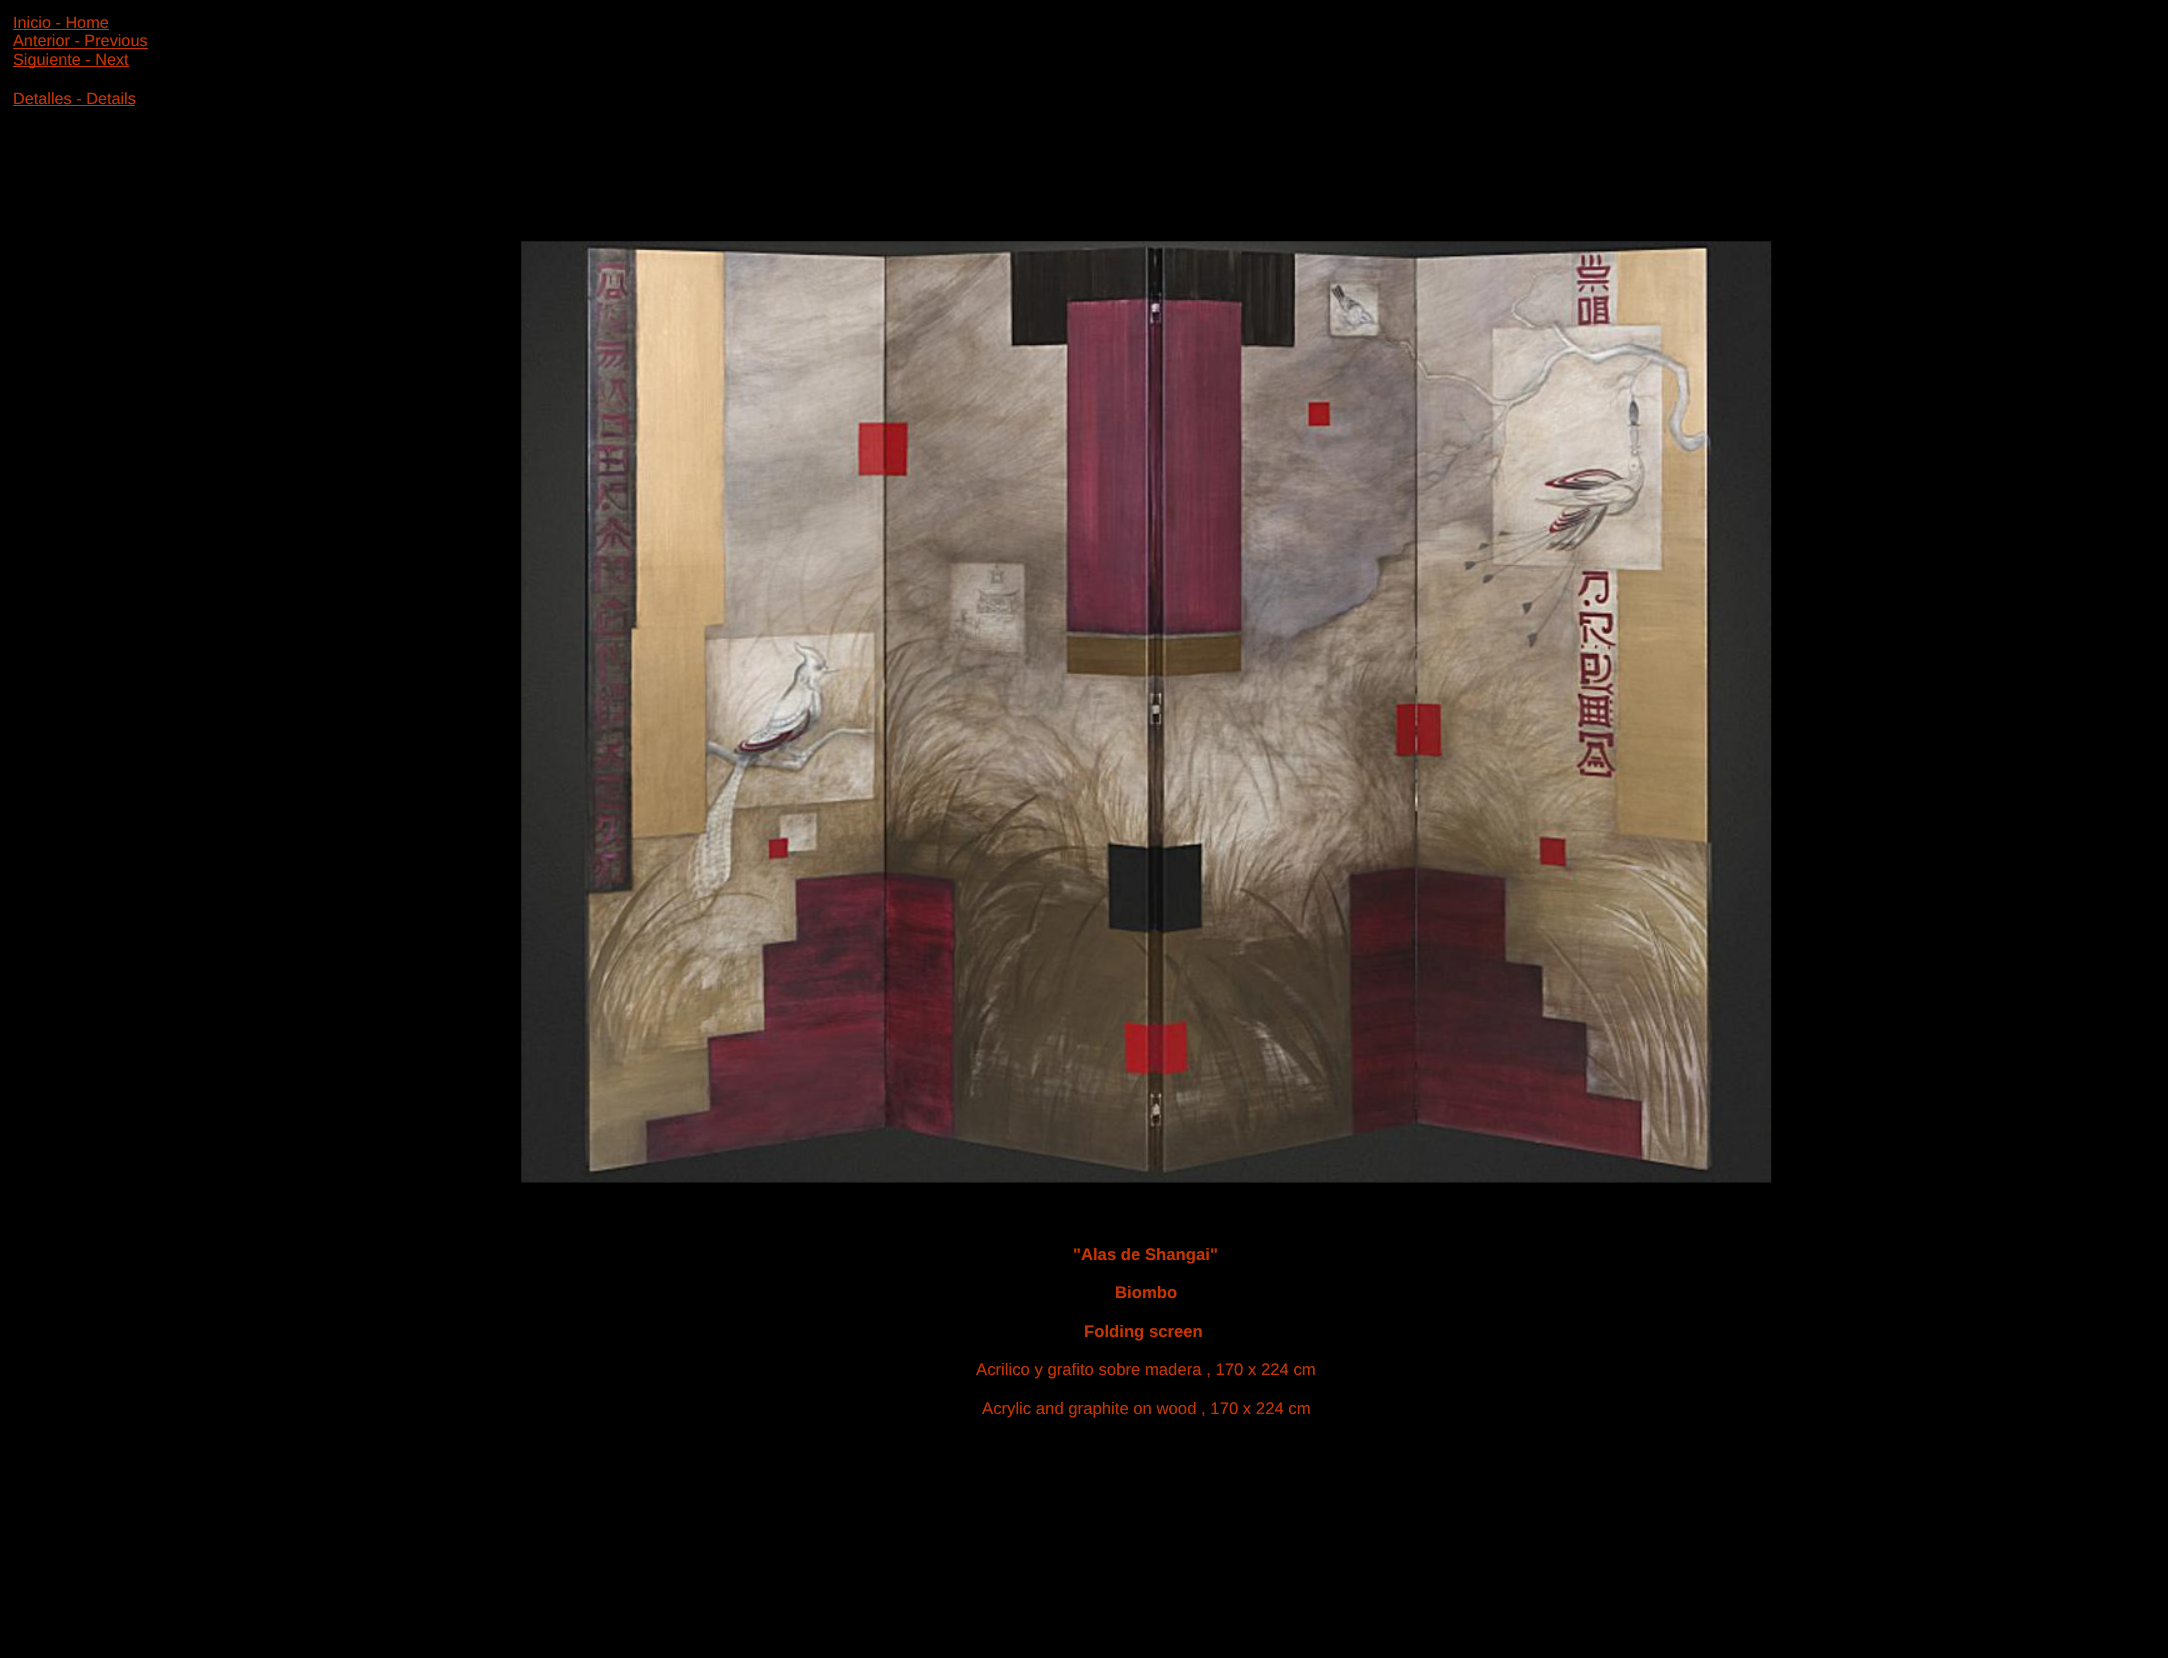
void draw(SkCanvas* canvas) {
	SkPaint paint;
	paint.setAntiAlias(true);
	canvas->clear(0xff000000);
	SkFont f1(fontMgr->matchFamilyStyle("Liberation Sans", SkFontStyle::Normal()), 16.25);
	f1.setSubpixel(true);
	paint.setColor(0xffc83400);
	canvas->drawString("Inicio - Home", 13, 28, f1, paint);
	canvas->drawRect(SkRect::MakeXYWH(13, 29, 96, 1), paint);
	canvas->drawString("Anterior - Previous", 13, 46, f1, paint);
	canvas->drawRect(SkRect::MakeXYWH(13, 48, 135, 1), paint);
	canvas->drawRect(SkRect::MakeXYWH(13, 66, 116, 1), paint);
	canvas->drawString("Siguiente - Next", 13, 65, f1, paint);
	canvas->drawString("Detalles - Details", 13, 104, f1, paint);
	canvas->drawRect(SkRect::MakeXYWH(13, 105, 122, 1), paint);
	canvas->drawImageRect(SkImages::DeferredFromEncodedData(SkData::MakeFromFileName("img1.png")), SkRect::MakeXYWH(521, 241, 1251, 942), SkSamplingOptions());
	SkFont f2(fontMgr->matchFamilyStyle("Liberation Sans", SkFontStyle::Bold()), 16.7);
	f2.setSubpixel(true);
	canvas->drawString("\"Alas de Shangai\"", 1073, 1260, f2, paint);
	canvas->drawString("Biombo", 1115, 1298, f2, paint);
	canvas->drawString("Folding screen", 1084, 1337, f2, paint);
	SkFont f3(fontMgr->matchFamilyStyle("Liberation Sans", SkFontStyle::Normal()), 16.7);
	f3.setSubpixel(true);
	canvas->drawString("Acrilico y grafito sobre madera , 170 x 224 cm", 976, 1375, f3, paint);
	canvas->drawString("Acrylic and graphite on wood , 170 x 224 cm", 982, 1414, f3, paint);
}
